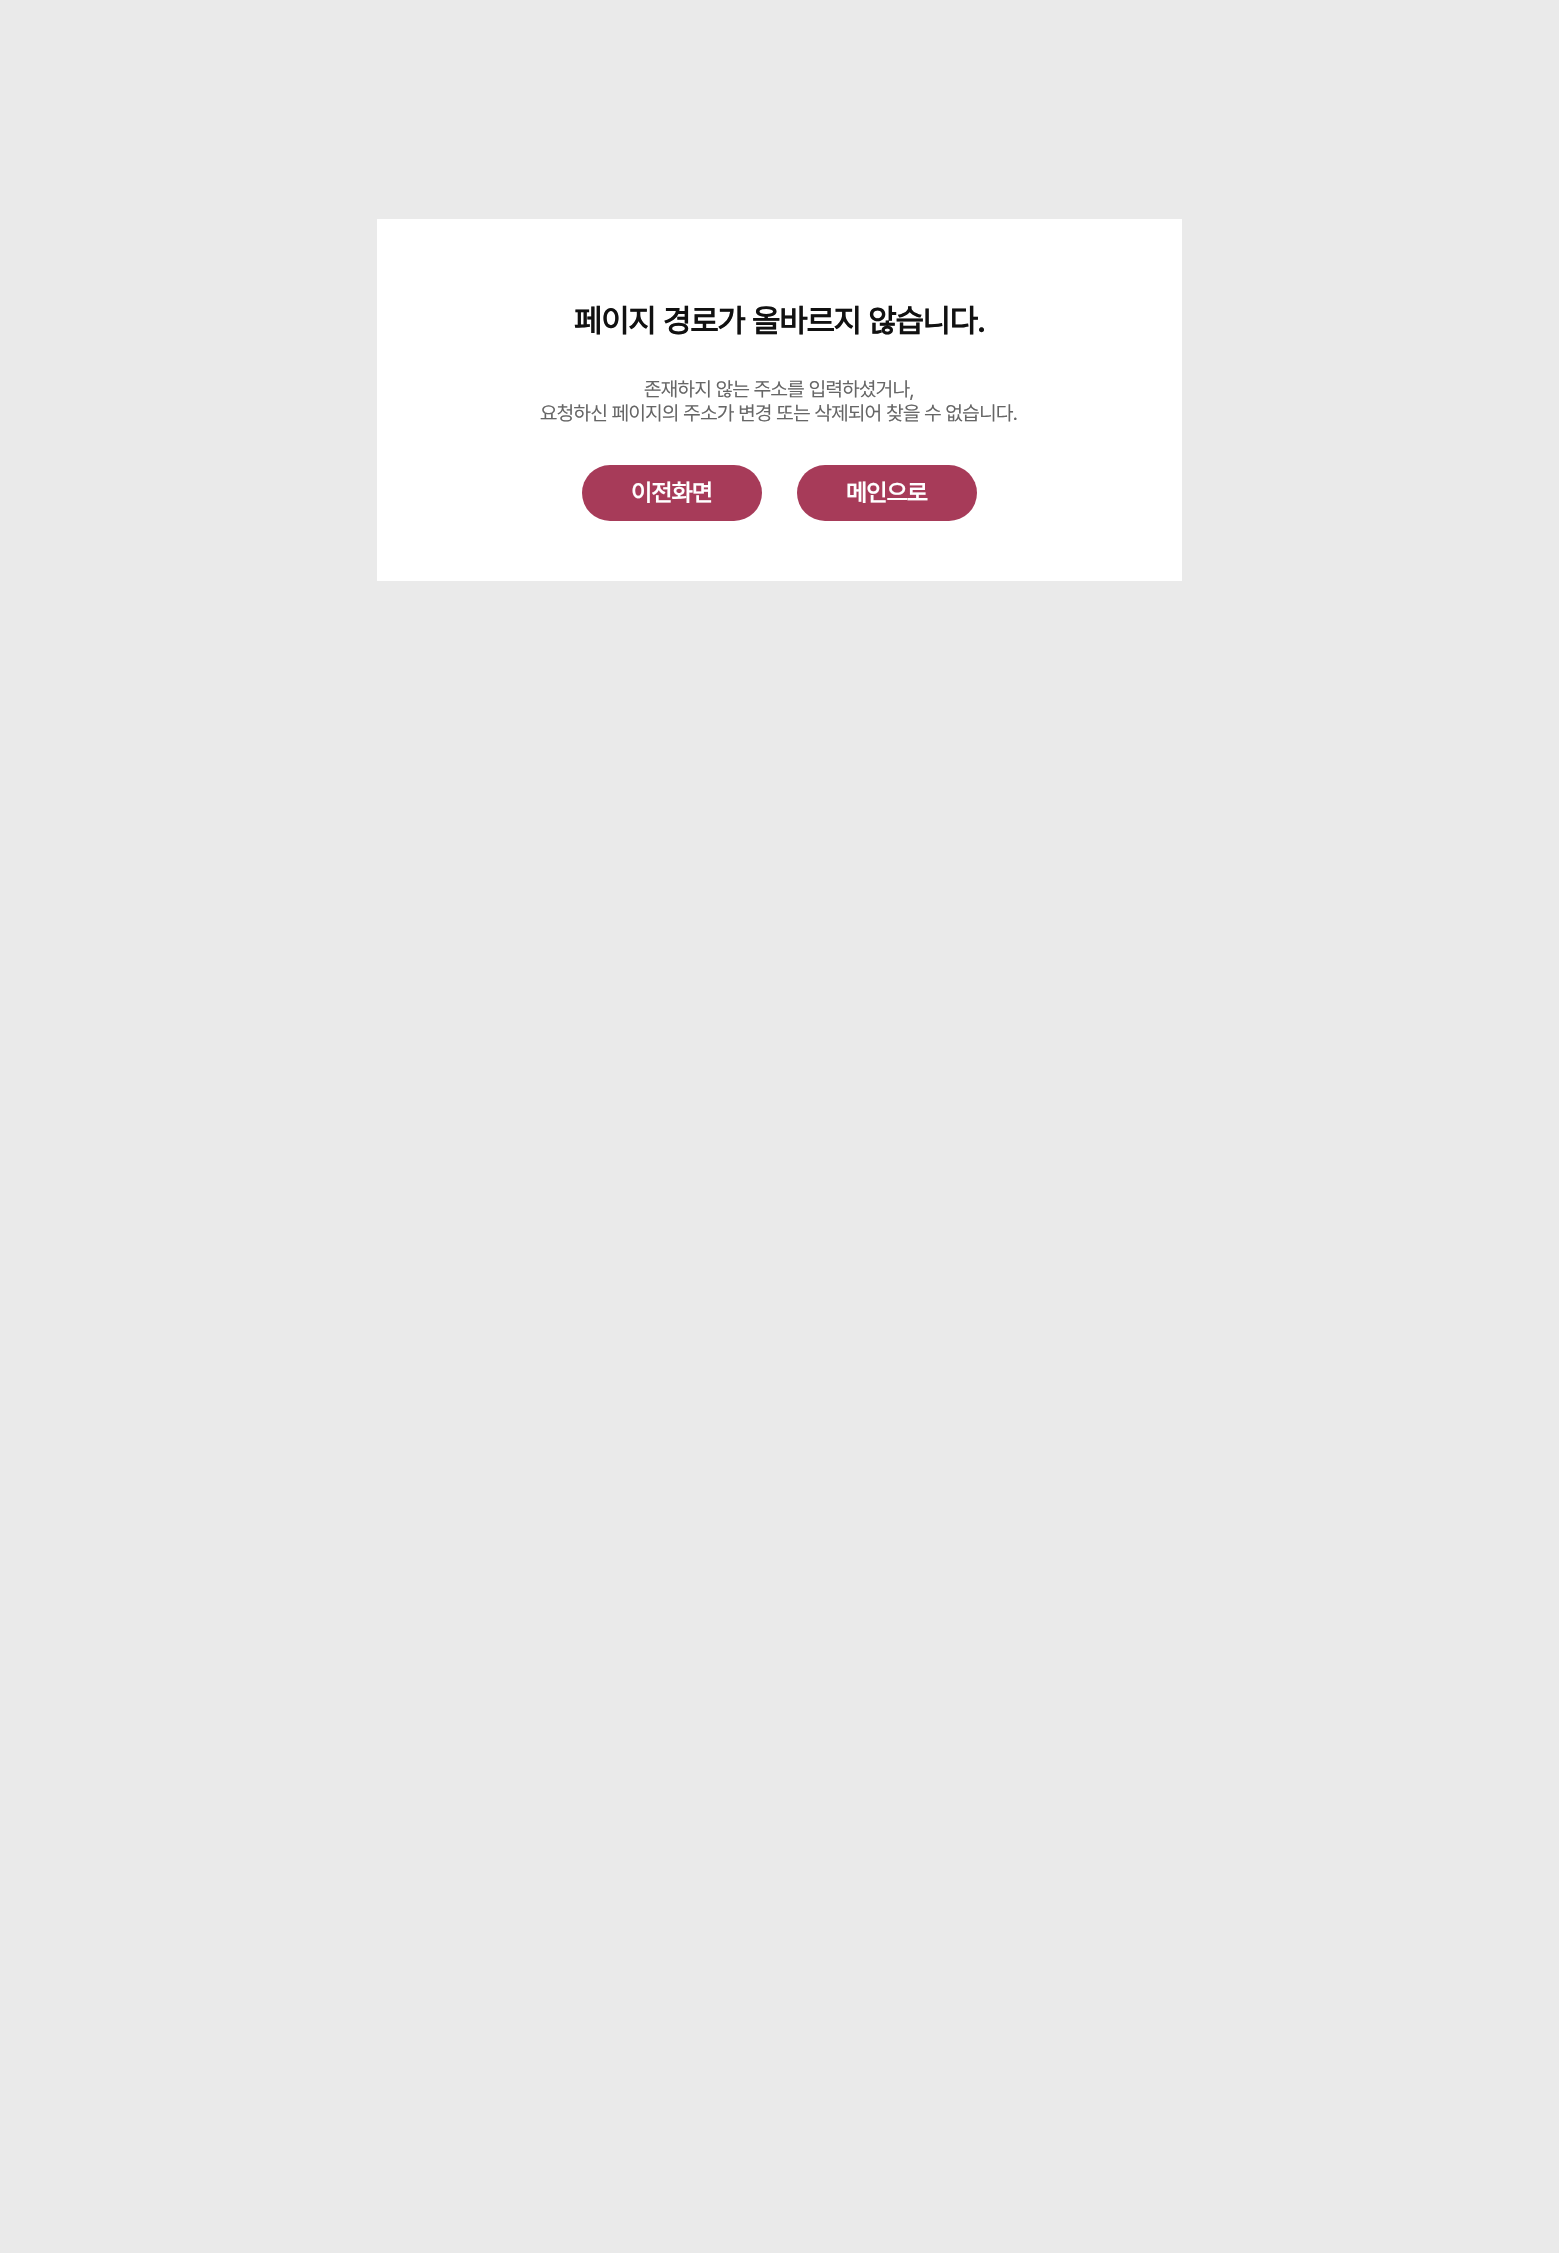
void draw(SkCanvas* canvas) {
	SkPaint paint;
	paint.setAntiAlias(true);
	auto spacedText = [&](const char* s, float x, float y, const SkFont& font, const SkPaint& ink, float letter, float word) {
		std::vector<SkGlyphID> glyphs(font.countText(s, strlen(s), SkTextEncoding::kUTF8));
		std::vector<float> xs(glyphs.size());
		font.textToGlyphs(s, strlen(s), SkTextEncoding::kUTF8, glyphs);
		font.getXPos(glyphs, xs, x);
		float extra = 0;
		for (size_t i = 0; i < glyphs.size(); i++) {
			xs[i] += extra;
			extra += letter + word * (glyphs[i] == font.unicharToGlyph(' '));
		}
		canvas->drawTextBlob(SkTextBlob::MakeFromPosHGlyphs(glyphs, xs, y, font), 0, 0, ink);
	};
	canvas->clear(0xffeaeaea);
	paint.setColor(0xffffffff);
	canvas->drawRect(SkRect::MakeXYWH(377, 219, 805, 362), paint);
	SkFont f1(fontMgr->matchFamilyStyle("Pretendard", SkFontStyle::Bold()), 32);
	f1.setSubpixel(true);
	paint.setColor(0xff111111);
	spacedText("페이지 경로가 올바르지 않습니다.", 574, 332, f1, paint, -0.5, 0);
	SkFont f2(fontMgr->matchFamilyStyle("Pretendard", SkFontStyle::Normal()), 20);
	f2.setSubpixel(true);
	paint.setColor(0xff666666);
	spacedText("존재하지 않는 주소를 입력하셨거나,", 644, 396, f2, paint, -0.5, 0);
	spacedText("요청하신 페이지의 주소가 변경 또는 삭제되어 찾을 수 없습니다.", 540, 420, f2, paint, -0.5, 0);
	paint.setColor(0xffa73b59);
	canvas->drawRoundRect(SkRect::MakeXYWH(582, 465, 180, 56), 28, 28, paint);
	SkFont f3(fontMgr->matchFamilyStyle("Pretendard", SkFontStyle::Bold()), 24);
	f3.setSubpixel(true);
	paint.setColor(0xffffffff);
	spacedText("이전화면", 631, 501, f3, paint, -0.5, 0);
	paint.setColor(0xffa73b59);
	canvas->drawRoundRect(SkRect::MakeXYWH(797, 465, 180, 56), 28, 28, paint);
	paint.setColor(0xffffffff);
	spacedText("메인으로", 846, 501, f3, paint, -0.5, 0);
}
